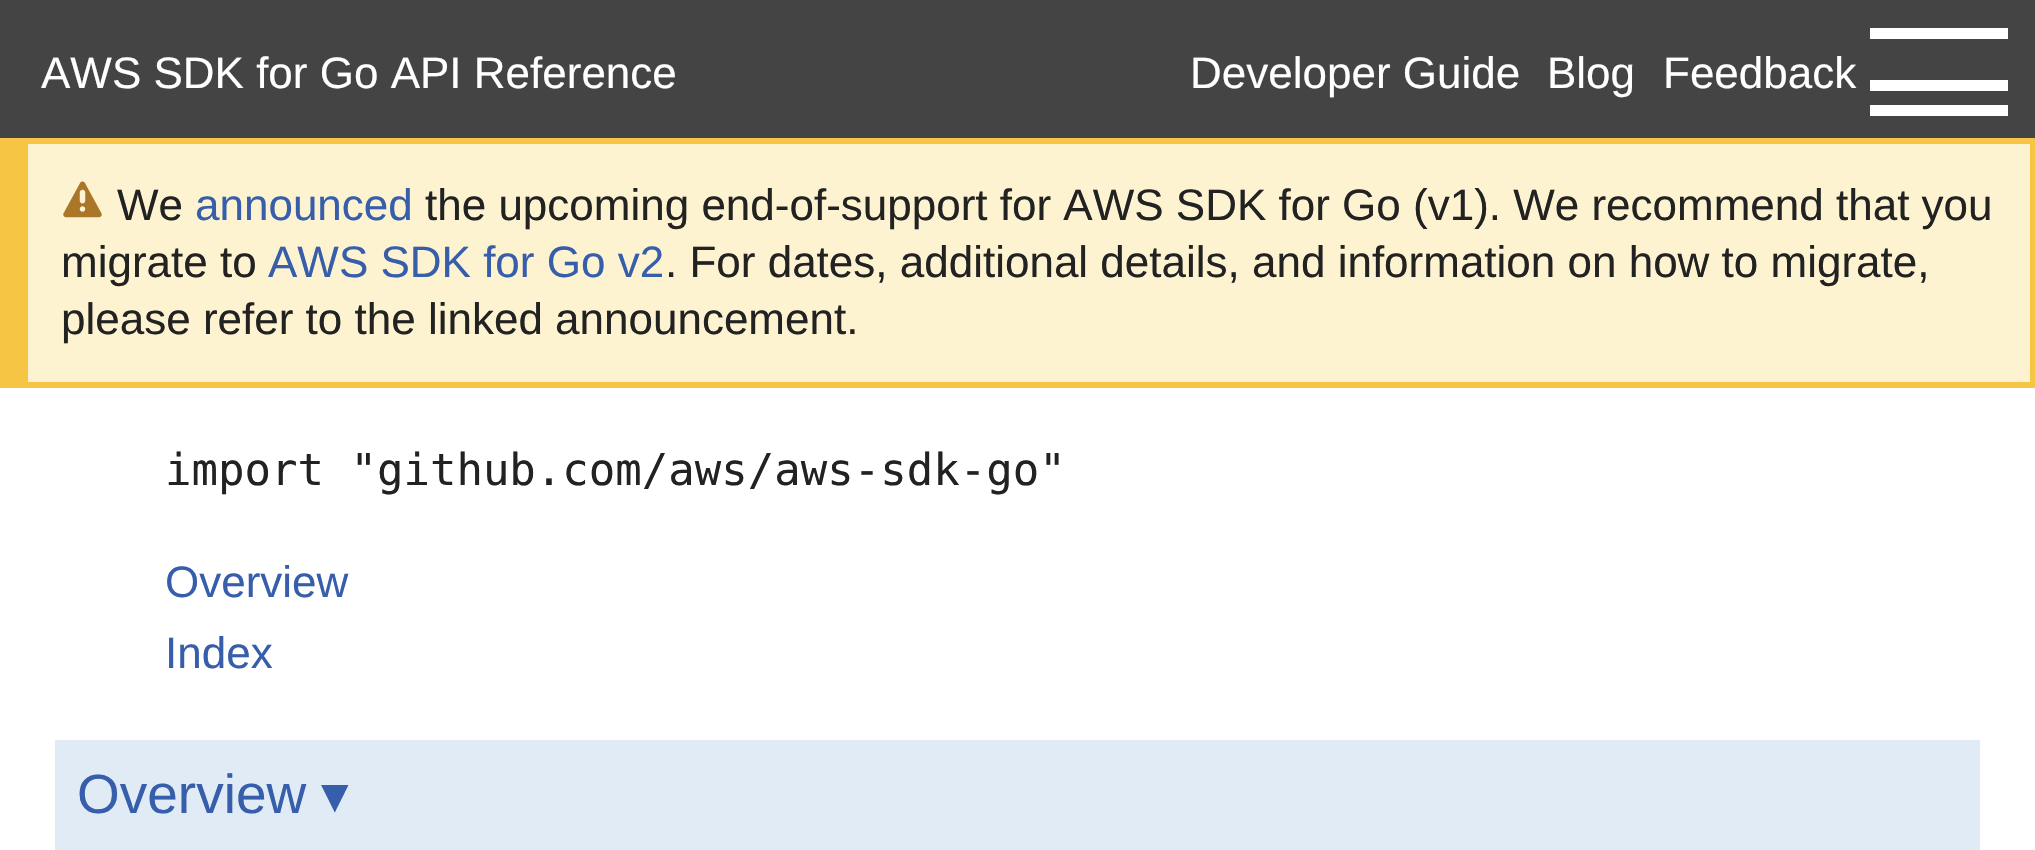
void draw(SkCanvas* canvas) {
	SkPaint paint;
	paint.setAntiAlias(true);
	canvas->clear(0xffffffff);
	paint.setColor(0xff444444);
	canvas->drawRect(SkRect::MakeXYWH(0, 0, 2035, 138), paint);
	SkFont f1(fontMgr->matchFamilyStyle("Liberation Sans", SkFontStyle::Normal()), 44);
	f1.setSubpixel(true);
	paint.setColor(0xffffffff);
	canvas->drawString("AWS SDK for Go API Reference", 41, 88, f1, paint);
	canvas->drawString("Developer Guide", 1190, 88, f1, paint);
	canvas->drawString("Blog", 1547, 88, f1, paint);
	canvas->drawString("Feedback", 1663, 88, f1, paint);
	canvas->drawRect(SkRect::MakeXYWH(1870, 28, 138, 11), paint);
	canvas->drawRect(SkRect::MakeXYWH(1870, 80, 138, 11), paint);
	canvas->drawRect(SkRect::MakeXYWH(1870, 105, 138, 11), paint);
	paint.setColor(0xfffdf3d0);
	canvas->drawRect(SkRect::MakeXYWH(28, 144, 2002, 238), paint);
	paint.setColor(0xfff7c544);
	canvas->drawRect(SkRect::MakeXYWH(28, 138, 2007, 6), paint);
	canvas->drawRect(SkRect::MakeXYWH(2030, 138, 5, 250), paint);
	canvas->drawRect(SkRect::MakeXYWH(28, 382, 2007, 6), paint);
	canvas->drawRect(SkRect::MakeXYWH(0, 138, 28, 250), paint);
	canvas->drawImageRect(SkImages::DeferredFromEncodedData(SkData::MakeFromFileName("img1.png")), SkRect::MakeXYWH(63, 181, 39, 37), SkSamplingOptions());
	paint.setColor(0xff222222);
	canvas->drawString("We", 117, 220, f1, paint);
	paint.setColor(0xff375eab);
	canvas->drawString("announced", 195, 220, f1, paint);
	paint.setColor(0xff222222);
	canvas->drawString("the upcoming end-of-support for AWS SDK for Go (v1). We recommend that you", 425, 220, f1, paint);
	canvas->drawString("migrate to", 61, 277, f1, paint);
	paint.setColor(0xff375eab);
	canvas->drawString("AWS SDK for Go v2", 268, 277, f1, paint);
	paint.setColor(0xff222222);
	canvas->drawString(". For dates, additional details, and information on how to migrate,", 665, 277, f1, paint);
	canvas->drawString("please refer to the linked announcement.", 61, 334, f1, paint);
	SkFont f2(fontMgr->matchFamilyStyle("DejaVu Sans Mono", SkFontStyle::Normal()), 44);
	f2.setSubpixel(true);
	canvas->drawString("import \"github.com/aws/aws-sdk-go\"", 165, 485, f2, paint);
	paint.setColor(0xff375eab);
	canvas->drawString("Overview", 165, 597, f1, paint);
	canvas->drawString("Index", 165, 668, f1, paint);
	paint.setColor(0xffe0ebf5);
	canvas->drawRect(SkRect::MakeXYWH(55, 740, 1925, 110), paint);
	SkFont f3(fontMgr->matchFamilyStyle("Liberation Sans", SkFontStyle::Normal()), 55);
	f3.setSubpixel(true);
	paint.setColor(0xff375eab);
	canvas->drawString("Overview", 77, 813, f3, paint);
	SkFont f4(fontMgr->matchFamilyStyle("DejaVu Sans", SkFontStyle::Normal()), 55);
	f4.setSubpixel(true);
	canvas->drawString("▾", 321, 813, f4, paint);
}
